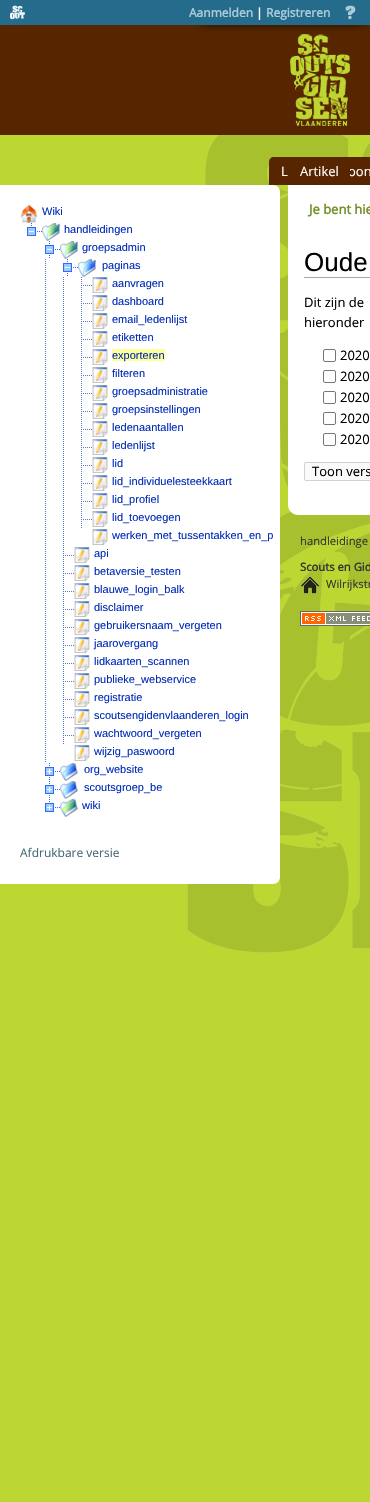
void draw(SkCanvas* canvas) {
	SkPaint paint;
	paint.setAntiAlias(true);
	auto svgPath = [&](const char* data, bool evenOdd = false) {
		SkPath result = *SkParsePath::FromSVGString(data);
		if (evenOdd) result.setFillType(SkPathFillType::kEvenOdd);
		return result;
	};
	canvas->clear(0xffbdd732);
	canvas->drawImageRect(SkImages::DeferredFromEncodedData(SkData::MakeFromFileName("img1.png")), SkRect::MakeXYWH(129, 135, 241, 818), SkSamplingOptions());
	paint.setColor(0xff572600);
	canvas->drawRect(SkRect::MakeXYWH(0, 25, 370, 110), paint);
	canvas->drawImageRect(SkImages::DeferredFromEncodedData(SkData::MakeFromFileName("img4.png")), SkRect::MakeXYWH(290, 34, 60, 92), SkSamplingOptions());
	paint.setColor(0xff000000);
	paint.setMaskFilter(SkMaskFilter::MakeBlur(kNormal_SkBlurStyle, 5));
	canvas->drawRect(SkRect::MakeXYWH(202, -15, 161, 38), paint);
	paint.setMaskFilter(nullptr);
	paint.setColor(0xff246b8c);
	canvas->drawRect(SkRect::MakeXYWH(0, 0, 370, 25), paint);
	canvas->drawImageRect(SkImages::DeferredFromEncodedData(SkData::MakeFromFileName("img2.png")), SkRect::MakeXYWH(10, 5, 15, 15), SkSamplingOptions());
	SkFont f1(fontMgr->matchFamilyStyle("Open Sans", SkFontStyle::Bold()), 12);
	f1.setSubpixel(true);
	paint.setColor(0xffaccbd9);
	canvas->drawString("Aanmelden", 189, 17, f1, paint);
	paint.setColor(0xffffffff);
	canvas->drawString("|", 256, 17, f1, paint);
	paint.setColor(0xffaccbd9);
	canvas->drawString("Registreren", 266, 17, f1, paint);
	canvas->drawImageRect(SkImages::DeferredFromEncodedData(SkData::MakeFromFileName("img3.png")), SkRect::MakeXYWH(345, 5, 11, 15), SkSamplingOptions());
	paint.setColor(0xff572600);
	canvas->drawPath(svgPath("M274 157H322C325 157 327 159 327 162V185H269V162C269 159 271 157 274 157Z"), paint);
	SkFont f2(fontMgr->matchFamilyStyle("Open Sans", SkFontStyle::Normal()), 13);
	f2.setSubpixel(true);
	paint.setColor(0xffffffff);
	canvas->drawString("L", 281, 176, f2, paint);
	paint.setColor(0xff572600);
	canvas->drawRect(SkRect::MakeXYWH(345, 157, 25, 28), paint);
	paint.setColor(0xffffffff);
	canvas->drawString("oon", 348, 176, f2, paint);
	paint.setColor(0xff572600);
	canvas->drawPath(svgPath("M294 157H345C348 157 350 159 350 162V185H289V162C289 159 291 157 294 157Z"), paint);
	paint.setColor(0xffffffff);
	canvas->drawString("Artikel", 300, 176, f2, paint);
	canvas->drawPath(svgPath("M0 185H273C277 185 280 188 280 192V877C280 881 277 884 273 884H0Z"), paint);
	canvas->drawImageRect(SkImages::DeferredFromEncodedData(SkData::MakeFromFileName("img5.png")), SkRect::MakeXYWH(20, 205, 18, 18), SkSamplingOptions());
	SkFont f3(fontMgr->matchFamilyStyle("Liberation Sans", SkFontStyle::Normal()), 11);
	f3.setSubpixel(true);
	paint.setColor(0xff002bb8);
	canvas->drawString("Wiki", 42, 215, f3, paint);
	canvas->drawImageRect(SkImages::DeferredFromEncodedData(SkData::MakeFromFileName("img6.png")), SkRect::MakeXYWH(27, 223, 15, 13), SkSamplingOptions());
	canvas->drawImageRect(SkImages::DeferredFromEncodedData(SkData::MakeFromFileName("img7.png")), SkRect::MakeXYWH(42, 223, 18, 18), SkSamplingOptions());
	canvas->drawString("handleidingen", 64, 233, f3, paint);
	canvas->drawImageRect(SkImages::DeferredFromEncodedData(SkData::MakeFromFileName("img8.png")), SkRect::MakeXYWH(45, 241, 15, 17), SkSamplingOptions());
	canvas->drawImageRect(SkImages::DeferredFromEncodedData(SkData::MakeFromFileName("img7.png")), SkRect::MakeXYWH(60, 241, 18, 18), SkSamplingOptions());
	canvas->drawString("groepsadmin", 82, 251, f3, paint);
	canvas->drawImageRect(SkImages::DeferredFromEncodedData(SkData::MakeFromFileName("img9.png")), SkRect::MakeXYWH(45, 259, 1, 17), SkSamplingOptions());
	canvas->drawImageRect(SkImages::DeferredFromEncodedData(SkData::MakeFromFileName("img8.png")), SkRect::MakeXYWH(63, 259, 15, 17), SkSamplingOptions());
	canvas->drawImageRect(SkImages::DeferredFromEncodedData(SkData::MakeFromFileName("img10.png")), SkRect::MakeXYWH(78, 259, 18, 18), SkSamplingOptions());
	canvas->drawString("paginas", 102, 269, f3, paint);
	canvas->drawImageRect(SkImages::DeferredFromEncodedData(SkData::MakeFromFileName("img9.png")), SkRect::MakeXYWH(45, 277, 1, 17), SkSamplingOptions());
	canvas->drawImageRect(SkImages::DeferredFromEncodedData(SkData::MakeFromFileName("img9.png")), SkRect::MakeXYWH(63, 277, 1, 17), SkSamplingOptions());
	canvas->drawImageRect(SkImages::DeferredFromEncodedData(SkData::MakeFromFileName("img11.png")), SkRect::MakeXYWH(81, 277, 11, 17), SkSamplingOptions());
	canvas->drawImageRect(SkImages::DeferredFromEncodedData(SkData::MakeFromFileName("img12.png")), SkRect::MakeXYWH(92, 277, 16, 16), SkSamplingOptions());
	canvas->drawString("aanvragen", 112, 287, f3, paint);
	canvas->drawImageRect(SkImages::DeferredFromEncodedData(SkData::MakeFromFileName("img9.png")), SkRect::MakeXYWH(45, 295, 1, 17), SkSamplingOptions());
	canvas->drawImageRect(SkImages::DeferredFromEncodedData(SkData::MakeFromFileName("img9.png")), SkRect::MakeXYWH(63, 295, 1, 17), SkSamplingOptions());
	canvas->drawImageRect(SkImages::DeferredFromEncodedData(SkData::MakeFromFileName("img11.png")), SkRect::MakeXYWH(81, 295, 11, 17), SkSamplingOptions());
	canvas->drawImageRect(SkImages::DeferredFromEncodedData(SkData::MakeFromFileName("img12.png")), SkRect::MakeXYWH(92, 295, 16, 16), SkSamplingOptions());
	canvas->drawString("dashboard", 112, 305, f3, paint);
	canvas->drawImageRect(SkImages::DeferredFromEncodedData(SkData::MakeFromFileName("img9.png")), SkRect::MakeXYWH(45, 313, 1, 17), SkSamplingOptions());
	canvas->drawImageRect(SkImages::DeferredFromEncodedData(SkData::MakeFromFileName("img9.png")), SkRect::MakeXYWH(63, 313, 1, 17), SkSamplingOptions());
	canvas->drawImageRect(SkImages::DeferredFromEncodedData(SkData::MakeFromFileName("img11.png")), SkRect::MakeXYWH(81, 313, 11, 17), SkSamplingOptions());
	canvas->drawImageRect(SkImages::DeferredFromEncodedData(SkData::MakeFromFileName("img12.png")), SkRect::MakeXYWH(92, 313, 16, 16), SkSamplingOptions());
	canvas->drawString("email_ledenlijst", 112, 323, f3, paint);
	canvas->drawImageRect(SkImages::DeferredFromEncodedData(SkData::MakeFromFileName("img9.png")), SkRect::MakeXYWH(45, 331, 1, 17), SkSamplingOptions());
	canvas->drawImageRect(SkImages::DeferredFromEncodedData(SkData::MakeFromFileName("img9.png")), SkRect::MakeXYWH(63, 331, 1, 17), SkSamplingOptions());
	canvas->drawImageRect(SkImages::DeferredFromEncodedData(SkData::MakeFromFileName("img11.png")), SkRect::MakeXYWH(81, 331, 11, 17), SkSamplingOptions());
	canvas->drawImageRect(SkImages::DeferredFromEncodedData(SkData::MakeFromFileName("img12.png")), SkRect::MakeXYWH(92, 331, 16, 16), SkSamplingOptions());
	canvas->drawString("etiketten", 112, 341, f3, paint);
	canvas->drawImageRect(SkImages::DeferredFromEncodedData(SkData::MakeFromFileName("img9.png")), SkRect::MakeXYWH(45, 349, 1, 17), SkSamplingOptions());
	canvas->drawImageRect(SkImages::DeferredFromEncodedData(SkData::MakeFromFileName("img9.png")), SkRect::MakeXYWH(63, 349, 1, 17), SkSamplingOptions());
	canvas->drawImageRect(SkImages::DeferredFromEncodedData(SkData::MakeFromFileName("img11.png")), SkRect::MakeXYWH(81, 349, 11, 17), SkSamplingOptions());
	canvas->drawImageRect(SkImages::DeferredFromEncodedData(SkData::MakeFromFileName("img12.png")), SkRect::MakeXYWH(92, 349, 16, 16), SkSamplingOptions());
	paint.setColor(0xffffff99);
	canvas->drawRect(SkRect::MakeXYWH(112, 349, 53, 12), paint);
	paint.setColor(0xff002bb8);
	canvas->drawString("exporteren", 112, 359, f3, paint);
	canvas->drawImageRect(SkImages::DeferredFromEncodedData(SkData::MakeFromFileName("img9.png")), SkRect::MakeXYWH(45, 367, 1, 17), SkSamplingOptions());
	canvas->drawImageRect(SkImages::DeferredFromEncodedData(SkData::MakeFromFileName("img9.png")), SkRect::MakeXYWH(63, 367, 1, 17), SkSamplingOptions());
	canvas->drawImageRect(SkImages::DeferredFromEncodedData(SkData::MakeFromFileName("img11.png")), SkRect::MakeXYWH(81, 367, 11, 17), SkSamplingOptions());
	canvas->drawImageRect(SkImages::DeferredFromEncodedData(SkData::MakeFromFileName("img12.png")), SkRect::MakeXYWH(92, 367, 16, 16), SkSamplingOptions());
	canvas->drawString("filteren", 112, 377, f3, paint);
	canvas->drawImageRect(SkImages::DeferredFromEncodedData(SkData::MakeFromFileName("img9.png")), SkRect::MakeXYWH(45, 385, 1, 17), SkSamplingOptions());
	canvas->drawImageRect(SkImages::DeferredFromEncodedData(SkData::MakeFromFileName("img9.png")), SkRect::MakeXYWH(63, 385, 1, 17), SkSamplingOptions());
	canvas->drawImageRect(SkImages::DeferredFromEncodedData(SkData::MakeFromFileName("img11.png")), SkRect::MakeXYWH(81, 385, 11, 17), SkSamplingOptions());
	canvas->drawImageRect(SkImages::DeferredFromEncodedData(SkData::MakeFromFileName("img12.png")), SkRect::MakeXYWH(92, 385, 16, 16), SkSamplingOptions());
	canvas->drawString("groepsadministratie", 112, 395, f3, paint);
	canvas->drawImageRect(SkImages::DeferredFromEncodedData(SkData::MakeFromFileName("img9.png")), SkRect::MakeXYWH(45, 403, 1, 17), SkSamplingOptions());
	canvas->drawImageRect(SkImages::DeferredFromEncodedData(SkData::MakeFromFileName("img9.png")), SkRect::MakeXYWH(63, 403, 1, 17), SkSamplingOptions());
	canvas->drawImageRect(SkImages::DeferredFromEncodedData(SkData::MakeFromFileName("img11.png")), SkRect::MakeXYWH(81, 403, 11, 17), SkSamplingOptions());
	canvas->drawImageRect(SkImages::DeferredFromEncodedData(SkData::MakeFromFileName("img12.png")), SkRect::MakeXYWH(92, 403, 16, 16), SkSamplingOptions());
	canvas->drawString("groepsinstellingen", 112, 413, f3, paint);
	canvas->drawImageRect(SkImages::DeferredFromEncodedData(SkData::MakeFromFileName("img9.png")), SkRect::MakeXYWH(45, 421, 1, 17), SkSamplingOptions());
	canvas->drawImageRect(SkImages::DeferredFromEncodedData(SkData::MakeFromFileName("img9.png")), SkRect::MakeXYWH(63, 421, 1, 17), SkSamplingOptions());
	canvas->drawImageRect(SkImages::DeferredFromEncodedData(SkData::MakeFromFileName("img11.png")), SkRect::MakeXYWH(81, 421, 11, 17), SkSamplingOptions());
	canvas->drawImageRect(SkImages::DeferredFromEncodedData(SkData::MakeFromFileName("img12.png")), SkRect::MakeXYWH(92, 421, 16, 16), SkSamplingOptions());
	canvas->drawString("ledenaantallen", 112, 431, f3, paint);
	canvas->drawImageRect(SkImages::DeferredFromEncodedData(SkData::MakeFromFileName("img9.png")), SkRect::MakeXYWH(45, 439, 1, 17), SkSamplingOptions());
	canvas->drawImageRect(SkImages::DeferredFromEncodedData(SkData::MakeFromFileName("img9.png")), SkRect::MakeXYWH(63, 439, 1, 17), SkSamplingOptions());
	canvas->drawImageRect(SkImages::DeferredFromEncodedData(SkData::MakeFromFileName("img11.png")), SkRect::MakeXYWH(81, 439, 11, 17), SkSamplingOptions());
	canvas->drawImageRect(SkImages::DeferredFromEncodedData(SkData::MakeFromFileName("img12.png")), SkRect::MakeXYWH(92, 439, 16, 16), SkSamplingOptions());
	canvas->drawString("ledenlijst", 112, 449, f3, paint);
	canvas->drawImageRect(SkImages::DeferredFromEncodedData(SkData::MakeFromFileName("img9.png")), SkRect::MakeXYWH(45, 457, 1, 17), SkSamplingOptions());
	canvas->drawImageRect(SkImages::DeferredFromEncodedData(SkData::MakeFromFileName("img9.png")), SkRect::MakeXYWH(63, 457, 1, 17), SkSamplingOptions());
	canvas->drawImageRect(SkImages::DeferredFromEncodedData(SkData::MakeFromFileName("img11.png")), SkRect::MakeXYWH(81, 457, 11, 17), SkSamplingOptions());
	canvas->drawImageRect(SkImages::DeferredFromEncodedData(SkData::MakeFromFileName("img12.png")), SkRect::MakeXYWH(92, 457, 16, 16), SkSamplingOptions());
	canvas->drawString("lid", 112, 467, f3, paint);
	canvas->drawImageRect(SkImages::DeferredFromEncodedData(SkData::MakeFromFileName("img9.png")), SkRect::MakeXYWH(45, 475, 1, 17), SkSamplingOptions());
	canvas->drawImageRect(SkImages::DeferredFromEncodedData(SkData::MakeFromFileName("img9.png")), SkRect::MakeXYWH(63, 475, 1, 17), SkSamplingOptions());
	canvas->drawImageRect(SkImages::DeferredFromEncodedData(SkData::MakeFromFileName("img11.png")), SkRect::MakeXYWH(81, 475, 11, 17), SkSamplingOptions());
	canvas->drawImageRect(SkImages::DeferredFromEncodedData(SkData::MakeFromFileName("img12.png")), SkRect::MakeXYWH(92, 475, 16, 16), SkSamplingOptions());
	canvas->drawString("lid_individuelesteekkaart", 112, 485, f3, paint);
	canvas->drawImageRect(SkImages::DeferredFromEncodedData(SkData::MakeFromFileName("img9.png")), SkRect::MakeXYWH(45, 493, 1, 17), SkSamplingOptions());
	canvas->drawImageRect(SkImages::DeferredFromEncodedData(SkData::MakeFromFileName("img9.png")), SkRect::MakeXYWH(63, 493, 1, 17), SkSamplingOptions());
	canvas->drawImageRect(SkImages::DeferredFromEncodedData(SkData::MakeFromFileName("img11.png")), SkRect::MakeXYWH(81, 493, 11, 17), SkSamplingOptions());
	canvas->drawImageRect(SkImages::DeferredFromEncodedData(SkData::MakeFromFileName("img12.png")), SkRect::MakeXYWH(92, 493, 16, 16), SkSamplingOptions());
	canvas->drawString("lid_profiel", 112, 503, f3, paint);
	canvas->drawImageRect(SkImages::DeferredFromEncodedData(SkData::MakeFromFileName("img9.png")), SkRect::MakeXYWH(45, 511, 1, 17), SkSamplingOptions());
	canvas->drawImageRect(SkImages::DeferredFromEncodedData(SkData::MakeFromFileName("img9.png")), SkRect::MakeXYWH(63, 511, 1, 17), SkSamplingOptions());
	canvas->drawImageRect(SkImages::DeferredFromEncodedData(SkData::MakeFromFileName("img11.png")), SkRect::MakeXYWH(81, 511, 11, 17), SkSamplingOptions());
	canvas->drawImageRect(SkImages::DeferredFromEncodedData(SkData::MakeFromFileName("img12.png")), SkRect::MakeXYWH(92, 511, 16, 16), SkSamplingOptions());
	canvas->drawString("lid_toevoegen", 112, 521, f3, paint);
	canvas->drawImageRect(SkImages::DeferredFromEncodedData(SkData::MakeFromFileName("img9.png")), SkRect::MakeXYWH(45, 529, 1, 17), SkSamplingOptions());
	canvas->drawImageRect(SkImages::DeferredFromEncodedData(SkData::MakeFromFileName("img9.png")), SkRect::MakeXYWH(63, 529, 1, 17), SkSamplingOptions());
	canvas->drawImageRect(SkImages::DeferredFromEncodedData(SkData::MakeFromFileName("img12.png")), SkRect::MakeXYWH(92, 529, 16, 16), SkSamplingOptions());
	canvas->drawString("werken_met_tussentakken_en_p", 112, 539, f3, paint);
	canvas->drawImageRect(SkImages::DeferredFromEncodedData(SkData::MakeFromFileName("img9.png")), SkRect::MakeXYWH(45, 547, 1, 17), SkSamplingOptions());
	canvas->drawImageRect(SkImages::DeferredFromEncodedData(SkData::MakeFromFileName("img11.png")), SkRect::MakeXYWH(63, 547, 11, 17), SkSamplingOptions());
	canvas->drawImageRect(SkImages::DeferredFromEncodedData(SkData::MakeFromFileName("img12.png")), SkRect::MakeXYWH(74, 547, 16, 16), SkSamplingOptions());
	canvas->drawString("api", 94, 557, f3, paint);
	canvas->drawImageRect(SkImages::DeferredFromEncodedData(SkData::MakeFromFileName("img9.png")), SkRect::MakeXYWH(45, 565, 1, 17), SkSamplingOptions());
	canvas->drawImageRect(SkImages::DeferredFromEncodedData(SkData::MakeFromFileName("img11.png")), SkRect::MakeXYWH(63, 565, 11, 17), SkSamplingOptions());
	canvas->drawImageRect(SkImages::DeferredFromEncodedData(SkData::MakeFromFileName("img12.png")), SkRect::MakeXYWH(74, 565, 16, 16), SkSamplingOptions());
	canvas->drawString("betaversie_testen", 94, 575, f3, paint);
	canvas->drawImageRect(SkImages::DeferredFromEncodedData(SkData::MakeFromFileName("img9.png")), SkRect::MakeXYWH(45, 583, 1, 17), SkSamplingOptions());
	canvas->drawImageRect(SkImages::DeferredFromEncodedData(SkData::MakeFromFileName("img11.png")), SkRect::MakeXYWH(63, 583, 11, 17), SkSamplingOptions());
	canvas->drawImageRect(SkImages::DeferredFromEncodedData(SkData::MakeFromFileName("img12.png")), SkRect::MakeXYWH(74, 583, 16, 16), SkSamplingOptions());
	canvas->drawString("blauwe_login_balk", 94, 593, f3, paint);
	canvas->drawImageRect(SkImages::DeferredFromEncodedData(SkData::MakeFromFileName("img9.png")), SkRect::MakeXYWH(45, 601, 1, 17), SkSamplingOptions());
	canvas->drawImageRect(SkImages::DeferredFromEncodedData(SkData::MakeFromFileName("img11.png")), SkRect::MakeXYWH(63, 601, 11, 17), SkSamplingOptions());
	canvas->drawImageRect(SkImages::DeferredFromEncodedData(SkData::MakeFromFileName("img12.png")), SkRect::MakeXYWH(74, 601, 16, 16), SkSamplingOptions());
	canvas->drawString("disclaimer", 94, 611, f3, paint);
	canvas->drawImageRect(SkImages::DeferredFromEncodedData(SkData::MakeFromFileName("img9.png")), SkRect::MakeXYWH(45, 619, 1, 17), SkSamplingOptions());
	canvas->drawImageRect(SkImages::DeferredFromEncodedData(SkData::MakeFromFileName("img11.png")), SkRect::MakeXYWH(63, 619, 11, 17), SkSamplingOptions());
	canvas->drawImageRect(SkImages::DeferredFromEncodedData(SkData::MakeFromFileName("img12.png")), SkRect::MakeXYWH(74, 619, 16, 16), SkSamplingOptions());
	canvas->drawString("gebruikersnaam_vergeten", 94, 629, f3, paint);
	canvas->drawImageRect(SkImages::DeferredFromEncodedData(SkData::MakeFromFileName("img9.png")), SkRect::MakeXYWH(45, 637, 1, 17), SkSamplingOptions());
	canvas->drawImageRect(SkImages::DeferredFromEncodedData(SkData::MakeFromFileName("img11.png")), SkRect::MakeXYWH(63, 637, 11, 17), SkSamplingOptions());
	canvas->drawImageRect(SkImages::DeferredFromEncodedData(SkData::MakeFromFileName("img12.png")), SkRect::MakeXYWH(74, 637, 16, 16), SkSamplingOptions());
	canvas->drawString("jaarovergang", 94, 647, f3, paint);
	canvas->drawImageRect(SkImages::DeferredFromEncodedData(SkData::MakeFromFileName("img9.png")), SkRect::MakeXYWH(45, 655, 1, 17), SkSamplingOptions());
	canvas->drawImageRect(SkImages::DeferredFromEncodedData(SkData::MakeFromFileName("img11.png")), SkRect::MakeXYWH(63, 655, 11, 17), SkSamplingOptions());
	canvas->drawImageRect(SkImages::DeferredFromEncodedData(SkData::MakeFromFileName("img12.png")), SkRect::MakeXYWH(74, 655, 16, 16), SkSamplingOptions());
	canvas->drawString("lidkaarten_scannen", 94, 665, f3, paint);
	canvas->drawImageRect(SkImages::DeferredFromEncodedData(SkData::MakeFromFileName("img9.png")), SkRect::MakeXYWH(45, 673, 1, 17), SkSamplingOptions());
	canvas->drawImageRect(SkImages::DeferredFromEncodedData(SkData::MakeFromFileName("img11.png")), SkRect::MakeXYWH(63, 673, 11, 17), SkSamplingOptions());
	canvas->drawImageRect(SkImages::DeferredFromEncodedData(SkData::MakeFromFileName("img12.png")), SkRect::MakeXYWH(74, 673, 16, 16), SkSamplingOptions());
	canvas->drawString("publieke_webservice", 94, 683, f3, paint);
	canvas->drawImageRect(SkImages::DeferredFromEncodedData(SkData::MakeFromFileName("img9.png")), SkRect::MakeXYWH(45, 691, 1, 17), SkSamplingOptions());
	canvas->drawImageRect(SkImages::DeferredFromEncodedData(SkData::MakeFromFileName("img11.png")), SkRect::MakeXYWH(63, 691, 11, 17), SkSamplingOptions());
	canvas->drawImageRect(SkImages::DeferredFromEncodedData(SkData::MakeFromFileName("img12.png")), SkRect::MakeXYWH(74, 691, 16, 16), SkSamplingOptions());
	canvas->drawString("registratie", 94, 701, f3, paint);
	canvas->drawImageRect(SkImages::DeferredFromEncodedData(SkData::MakeFromFileName("img9.png")), SkRect::MakeXYWH(45, 709, 1, 17), SkSamplingOptions());
	canvas->drawImageRect(SkImages::DeferredFromEncodedData(SkData::MakeFromFileName("img11.png")), SkRect::MakeXYWH(63, 709, 11, 17), SkSamplingOptions());
	canvas->drawImageRect(SkImages::DeferredFromEncodedData(SkData::MakeFromFileName("img12.png")), SkRect::MakeXYWH(74, 709, 16, 16), SkSamplingOptions());
	canvas->drawString("scoutsengidenvlaanderen_login", 94, 719, f3, paint);
	canvas->drawImageRect(SkImages::DeferredFromEncodedData(SkData::MakeFromFileName("img9.png")), SkRect::MakeXYWH(45, 727, 1, 17), SkSamplingOptions());
	canvas->drawImageRect(SkImages::DeferredFromEncodedData(SkData::MakeFromFileName("img11.png")), SkRect::MakeXYWH(63, 727, 11, 17), SkSamplingOptions());
	canvas->drawImageRect(SkImages::DeferredFromEncodedData(SkData::MakeFromFileName("img12.png")), SkRect::MakeXYWH(74, 727, 16, 16), SkSamplingOptions());
	canvas->drawString("wachtwoord_vergeten", 94, 737, f3, paint);
	canvas->drawImageRect(SkImages::DeferredFromEncodedData(SkData::MakeFromFileName("img9.png")), SkRect::MakeXYWH(45, 745, 1, 17), SkSamplingOptions());
	canvas->drawImageRect(SkImages::DeferredFromEncodedData(SkData::MakeFromFileName("img12.png")), SkRect::MakeXYWH(74, 745, 16, 16), SkSamplingOptions());
	canvas->drawString("wijzig_paswoord", 94, 755, f3, paint);
	canvas->drawImageRect(SkImages::DeferredFromEncodedData(SkData::MakeFromFileName("img13.png")), SkRect::MakeXYWH(45, 763, 15, 17), SkSamplingOptions());
	canvas->drawImageRect(SkImages::DeferredFromEncodedData(SkData::MakeFromFileName("img14.png")), SkRect::MakeXYWH(60, 763, 18, 18), SkSamplingOptions());
	canvas->drawString("org_website", 84, 773, f3, paint);
	canvas->drawImageRect(SkImages::DeferredFromEncodedData(SkData::MakeFromFileName("img13.png")), SkRect::MakeXYWH(45, 781, 15, 17), SkSamplingOptions());
	canvas->drawImageRect(SkImages::DeferredFromEncodedData(SkData::MakeFromFileName("img14.png")), SkRect::MakeXYWH(60, 781, 18, 18), SkSamplingOptions());
	canvas->drawString("scoutsgroep_be", 84, 791, f3, paint);
	canvas->drawImageRect(SkImages::DeferredFromEncodedData(SkData::MakeFromFileName("img15.png")), SkRect::MakeXYWH(45, 799, 15, 13), SkSamplingOptions());
	canvas->drawImageRect(SkImages::DeferredFromEncodedData(SkData::MakeFromFileName("img16.png")), SkRect::MakeXYWH(60, 799, 18, 18), SkSamplingOptions());
	canvas->drawString("wiki", 82, 809, f3, paint);
	SkFont f4(fontMgr->matchFamilyStyle("Open Sans", SkFontStyle::Normal()), 12);
	f4.setSubpixel(true);
	paint.setColor(0xff436976);
	canvas->drawString("Afdrukbare versie", 20, 857, f4, paint);
	paint.setColor(0xffffffff);
	canvas->drawPath(svgPath("M288 185H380V515H298C292.5 515 288 510.5 288 505Z"), paint);
	SkFont f5(fontMgr->matchFamilyStyle("Open Sans", SkFontStyle::Bold()), 13);
	f5.setSubpixel(true);
	paint.setColor(0xff748d26);
	canvas->drawString("Je bent hie", 309, 214, f5, paint);
	paint.setColor(0xffaaaaaa);
	canvas->drawRect(SkRect::MakeXYWH(304, 277, 66, 1), paint);
	SkFont f6(fontMgr->matchFamilyStyle("Liberation Sans", SkFontStyle::Normal()), 26);
	f6.setSubpixel(true);
	paint.setColor(0xff000000);
	canvas->drawString("Oude", 304, 271, f6, paint);
	canvas->drawString("Dit zijn de", 304, 307, f2, paint);
	canvas->drawString("hieronder", 304, 327, f2, paint);
	paint.setStroke(true);
	paint.setStrokeWidth(1);
	paint.setColor(0xff767676);
	canvas->drawRoundRect(SkRect::MakeXYWH(323.5, 349.5, 12, 12), 1.5, 1.5, paint);
	paint.setStroke(false);
	paint.setColor(0xff000000);
	canvas->drawString("2020", 340, 360, f2, paint);
	paint.setStroke(true);
	paint.setColor(0xff767676);
	canvas->drawRoundRect(SkRect::MakeXYWH(323.5, 370.5, 12, 12), 1.5, 1.5, paint);
	paint.setStroke(false);
	paint.setColor(0xff000000);
	canvas->drawString("2020", 340, 381, f2, paint);
	paint.setStroke(true);
	paint.setColor(0xff767676);
	canvas->drawRoundRect(SkRect::MakeXYWH(323.5, 391.5, 12, 12), 1.5, 1.5, paint);
	paint.setStroke(false);
	paint.setColor(0xff000000);
	canvas->drawString("2020", 340, 402, f2, paint);
	paint.setStroke(true);
	paint.setColor(0xff767676);
	canvas->drawRoundRect(SkRect::MakeXYWH(323.5, 412.5, 12, 12), 1.5, 1.5, paint);
	paint.setStroke(false);
	paint.setColor(0xff000000);
	canvas->drawString("2020", 340, 423, f2, paint);
	paint.setStroke(true);
	paint.setColor(0xff767676);
	canvas->drawRoundRect(SkRect::MakeXYWH(323.5, 433.5, 12, 12), 1.5, 1.5, paint);
	paint.setStroke(false);
	paint.setColor(0xff000000);
	canvas->drawString("2020", 340, 444, f2, paint);
	paint.setColor(0xfffafafa);
	canvas->drawRoundRect(SkRect::MakeXYWH(304.5, 462.5, 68, 18), 1.5, 1.5, paint);
	paint.setStroke(true);
	paint.setColor(0xffd2d2d2);
	canvas->drawRoundRect(SkRect::MakeXYWH(304.5, 462.5, 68, 18), 1.5, 1.5, paint);
	paint.setStroke(false);
	paint.setColor(0xff000000);
	canvas->drawString("Toon vers", 312, 476, f2, paint);
	SkFont f7(fontMgr->matchFamilyStyle("Open Sans", SkFontStyle::Normal()), 11.25);
	f7.setSubpixel(true);
	paint.setColor(0xff333333);
	canvas->drawString("handleidinge", 300, 545, f7, paint);
	SkFont f8(fontMgr->matchFamilyStyle("Open Sans", SkFontStyle::Bold()), 11.25);
	f8.setSubpixel(true);
	canvas->drawString("Scouts en Gid", 300, 571, f8, paint);
	canvas->drawImageRect(SkImages::DeferredFromEncodedData(SkData::MakeFromFileName("img17.png")), SkRect::MakeXYWH(300, 577, 20, 17), SkSamplingOptions());
	canvas->drawString("Wilrijkstr", 326, 588, f7, paint);
	canvas->drawImageRect(SkImages::DeferredFromEncodedData(SkData::MakeFromFileName("img18.png")), SkRect::MakeXYWH(300, 611, 70, 15), SkSamplingOptions());
}
